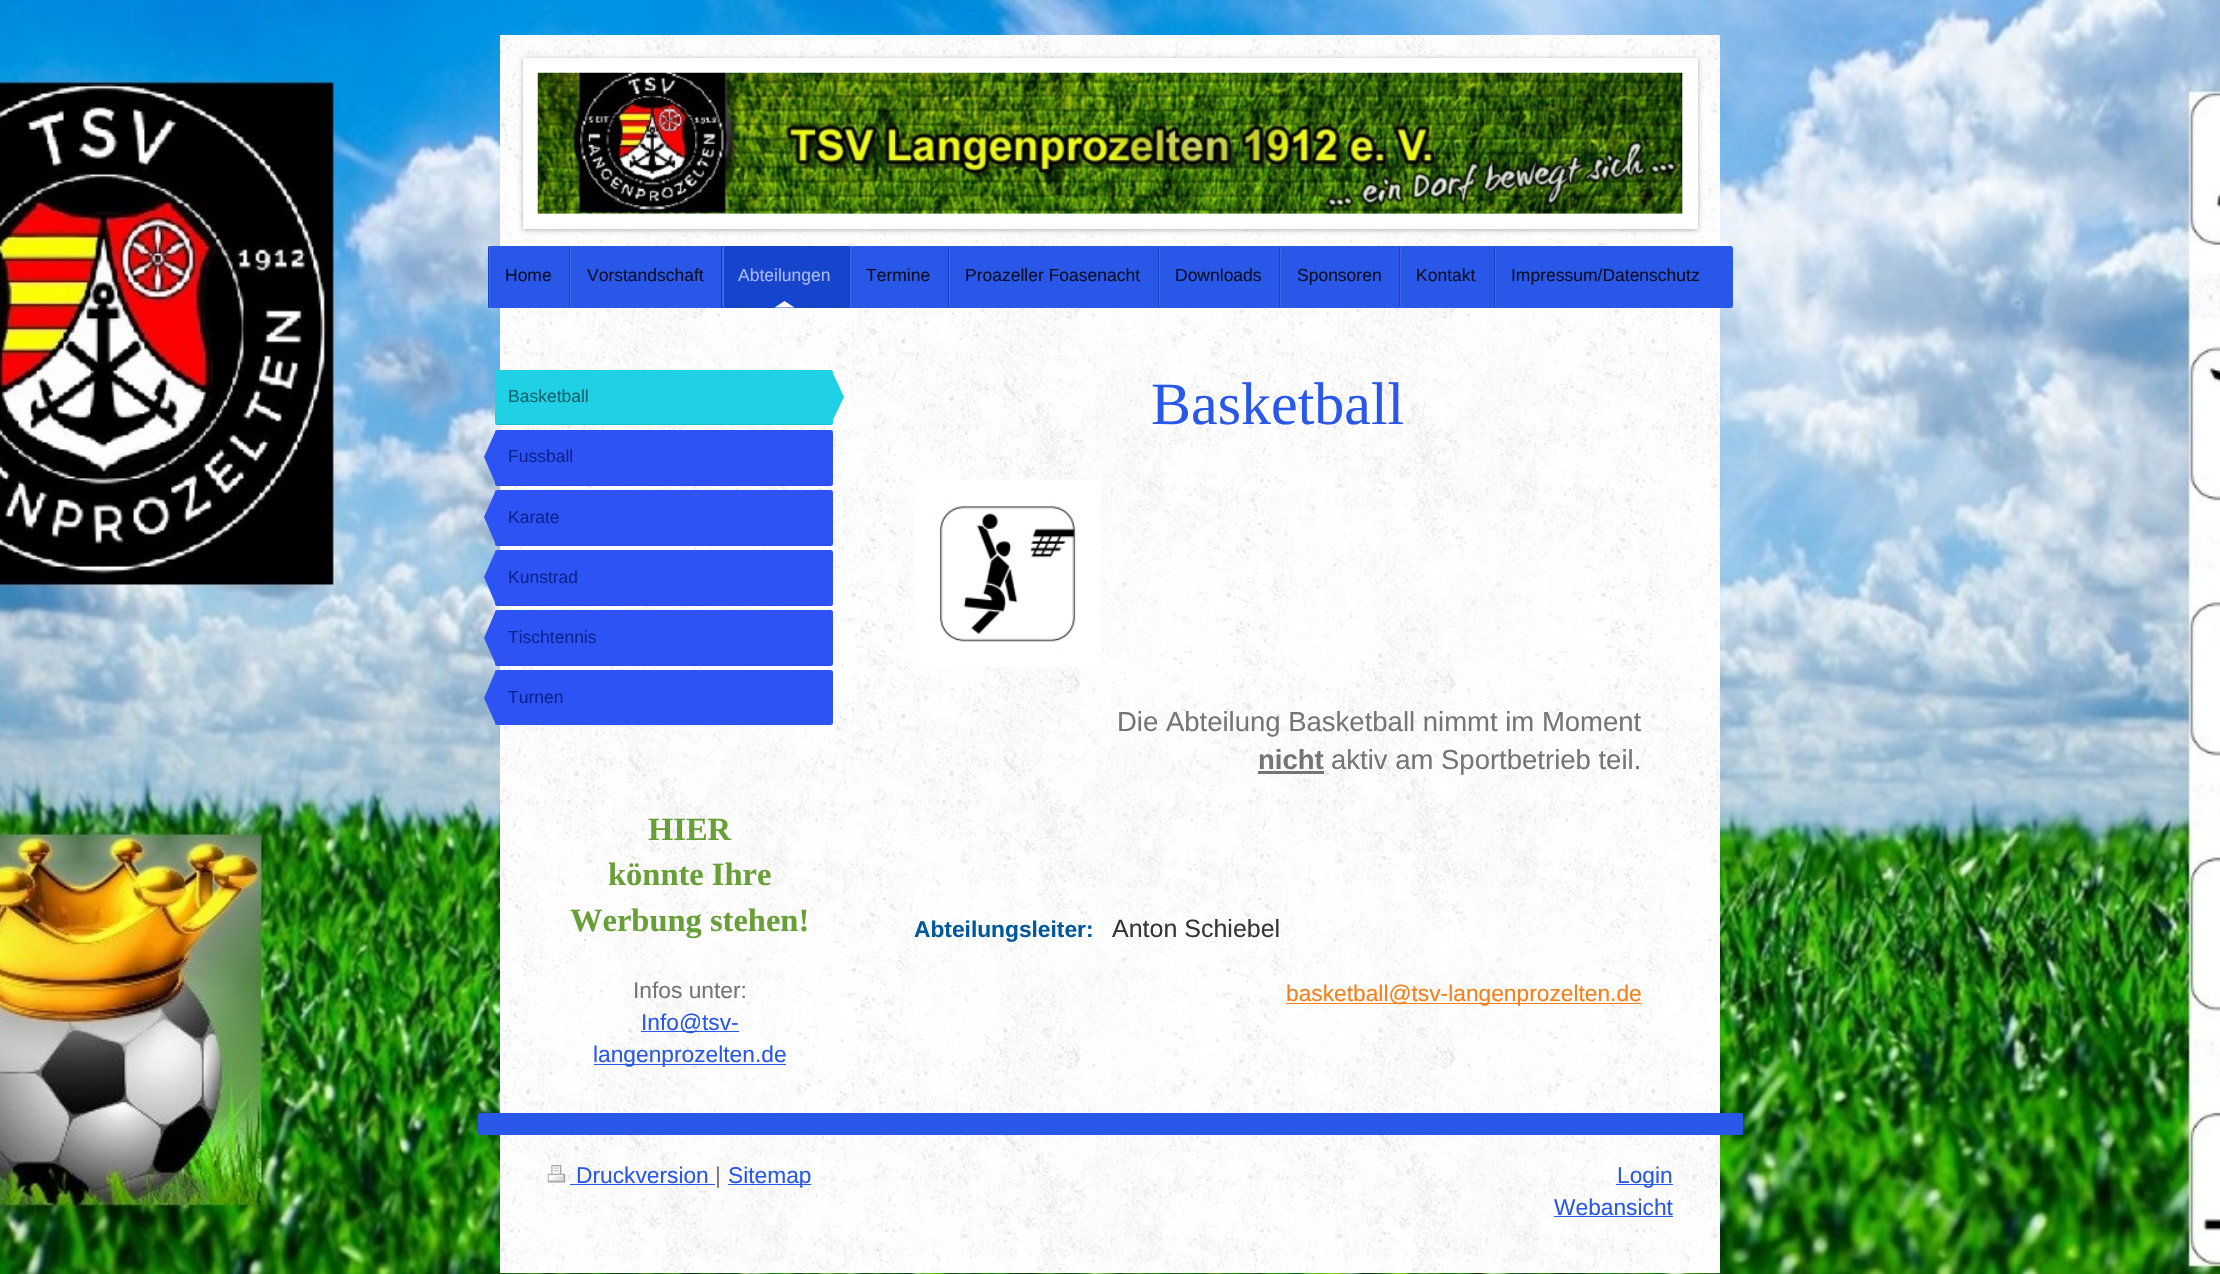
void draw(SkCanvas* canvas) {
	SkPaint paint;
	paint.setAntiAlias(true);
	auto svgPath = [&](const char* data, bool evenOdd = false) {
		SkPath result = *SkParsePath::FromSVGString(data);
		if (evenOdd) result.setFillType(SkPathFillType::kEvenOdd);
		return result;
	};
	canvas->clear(0xffffffff);
	canvas->drawImageRect(SkImages::DeferredFromEncodedData(SkData::MakeFromFileName("img1.png")), SkRect::MakeXYWH(0, 0, 2220, 1274), SkSamplingOptions());
	paint.setColor(0xffffffff);
	canvas->drawRect(SkRect::MakeXYWH(500, 35, 1220, 1238), paint);
	canvas->drawImageRect(SkImages::DeferredFromEncodedData(SkData::MakeFromFileName("img2.png")), SkRect::MakeXYWH(500, 35, 1220, 1238), SkSamplingOptions());
	paint.setColor(0x4d000000);
	paint.setMaskFilter(SkMaskFilter::MakeBlur(kNormal_SkBlurStyle, 2.5));
	canvas->drawRect(SkRect::MakeXYWH(523, 59, 1175, 171), paint);
	paint.setMaskFilter(nullptr);
	paint.setStroke(true);
	paint.setStrokeWidth(15);
	paint.setColor(0xffffffff);
	canvas->drawRect(SkRect::MakeXYWH(530.5, 65.5, 1160, 156), paint);
	paint.setStroke(false);
	paint.setColor(0xffeeeeee);
	canvas->drawRect(SkRect::MakeXYWH(538, 73, 1145, 141), paint);
	canvas->drawImageRect(SkImages::DeferredFromEncodedData(SkData::MakeFromFileName("img3.png")), SkRect::MakeXYWH(537, 72, 1146, 142), SkSamplingOptions());
	paint.setColor(0xff2958e8);
	canvas->drawRoundRect(SkRect::MakeXYWH(488, 246, 1245, 62), 2.5, 2.5, paint);
	paint.setColor(0xff406aea);
	canvas->drawPath(svgPath("M490 246C489 246 488 247 488 248V306C488 307 489 308 490 308H492C491 308 490 306 490 305V249C490 247 491 246 492 246Z"), paint);
	paint.setColor(0xff1642c8);
	canvas->drawPath(svgPath("M490 246C489 246 488 247 488 248V306C488 307 489 308 490 308H491C490 308 489 306 489 305V249C489 247 490 246 491 246Z"), paint);
	SkFont f1(fontMgr->matchFamilyStyle("Liberation Sans", SkFontStyle::Normal()), 17.5);
	f1.setSubpixel(true);
	paint.setColor(0xff060e26);
	canvas->drawString("Home", 505, 281, f1, paint);
	paint.setColor(0xff406aea);
	canvas->drawPath(svgPath("M572 246C570 246 569 247 569 248V306C569 307 570 308 572 308H574C572 308 571 306 571 305V249C571 247 572 246 574 246Z"), paint);
	paint.setColor(0xff1642c8);
	canvas->drawPath(svgPath("M572 246C570 246 569 247 569 248V306C569 307 570 308 572 308C571 308 570 306 570 305V249C570 247 571 246 572 246Z"), paint);
	paint.setColor(0xff060e26);
	canvas->drawString("Vorstandschaft", 587, 281, f1, paint);
	paint.setColor(0xff1744cc);
	canvas->drawRoundRect(SkRect::MakeXYWH(721, 246, 128, 62), 2.5, 2.5, paint);
	paint.setColor(0xff406aea);
	canvas->drawPath(svgPath("M724 246C722 246 721 247 721 248V306C721 307 722 308 724 308H726C725 308 724 306 724 305V249C724 247 725 246 726 246Z"), paint);
	paint.setColor(0xff1338a7);
	canvas->drawPath(svgPath("M724 246C722 246 721 247 721 248V306C721 307 722 308 724 308H725C724 308 722 306 722 305V249C722 247 724 246 725 246Z"), paint);
	paint.setColor(0xffa8baf3);
	canvas->drawString("Abteilungen", 738, 281, f1, paint);
	paint.setColor(0xffffffff);
	canvas->drawPath(svgPath("M794.5 307.5H774.5L784.5 301Z"), paint);
	paint.setColor(0xff406aea);
	canvas->drawPath(svgPath("M852 246C850 246 849 247 849 248V306C849 307 850 308 852 308H854C852 308 851 306 851 305V249C851 247 852 246 854 246Z"), paint);
	paint.setColor(0xff1642c8);
	canvas->drawPath(svgPath("M852 246C850 246 849 247 849 248V306C849 307 850 308 852 308C851 308 850 306 850 305V249C850 247 851 246 852 246Z"), paint);
	paint.setColor(0xff060e26);
	canvas->drawString("Termine", 866, 281, f1, paint);
	paint.setColor(0xff406aea);
	canvas->drawPath(svgPath("M950 246C949 246 948 247 948 248V306C948 307 949 308 950 308H952C951 308 950 306 950 305V249C950 247 951 246 952 246Z"), paint);
	paint.setColor(0xff1642c8);
	canvas->drawPath(svgPath("M950 246C949 246 948 247 948 248V306C948 307 949 308 950 308H951C950 308 949 306 949 305V249C949 247 950 246 951 246Z"), paint);
	paint.setColor(0xff060e26);
	canvas->drawString("Proazeller Foasenacht", 965, 281, f1, paint);
	paint.setColor(0xff406aea);
	canvas->drawPath(svgPath("M1160 246C1159 246 1158 247 1158 248V306C1158 307 1159 308 1160 308H1162C1161 308 1160 306 1160 305V249C1160 247 1161 246 1162 246Z"), paint);
	paint.setColor(0xff1642c8);
	canvas->drawPath(svgPath("M1160 246C1159 246 1158 247 1158 248V306C1158 307 1159 308 1160 308H1161C1160 308 1159 306 1159 305V249C1159 247 1160 246 1161 246Z"), paint);
	paint.setColor(0xff060e26);
	canvas->drawString("Downloads", 1175, 281, f1, paint);
	paint.setColor(0xff406aea);
	canvas->drawPath(svgPath("M1282 246C1280 246 1279 247 1279 248V306C1279 307 1280 308 1282 308H1284C1282 308 1281 306 1281 305V249C1281 247 1282 246 1284 246Z"), paint);
	paint.setColor(0xff1642c8);
	canvas->drawPath(svgPath("M1282 246C1280 246 1279 247 1279 248V306C1279 307 1280 308 1282 308C1281 308 1280 306 1280 305V249C1280 247 1281 246 1282 246Z"), paint);
	paint.setColor(0xff060e26);
	canvas->drawString("Sponsoren", 1297, 281, f1, paint);
	paint.setColor(0xff406aea);
	canvas->drawPath(svgPath("M1402 246C1400 246 1399 247 1399 248V306C1399 307 1400 308 1402 308H1404C1402 308 1401 306 1401 305V249C1401 247 1402 246 1404 246Z"), paint);
	paint.setColor(0xff1642c8);
	canvas->drawPath(svgPath("M1402 246C1400 246 1399 247 1399 248V306C1399 307 1400 308 1402 308C1401 308 1400 306 1400 305V249C1400 247 1401 246 1402 246Z"), paint);
	paint.setColor(0xff060e26);
	canvas->drawString("Kontakt", 1416, 281, f1, paint);
	paint.setColor(0xff406aea);
	canvas->drawPath(svgPath("M1496 246C1495 246 1494 247 1494 248V306C1494 307 1495 308 1496 308H1499C1497 308 1496 306 1496 305V249C1496 247 1497 246 1499 246Z"), paint);
	paint.setColor(0xff1642c8);
	canvas->drawPath(svgPath("M1496 246C1495 246 1494 247 1494 248V306C1494 307 1495 308 1496 308H1498C1496 308 1495 306 1495 305V249C1495 247 1496 246 1498 246Z"), paint);
	paint.setColor(0xff060e26);
	canvas->drawString("Impressum/Datenschutz", 1511, 281, f1, paint);
	paint.setColor(0xff20d1e5);
	canvas->drawRoundRect(SkRect::MakeXYWH(495, 370, 338, 55), 2.5, 2.5, paint);
	paint.setColor(0x1a000000);
	canvas->drawRect(SkRect::MakeXYWH(496, 424, 335, 1), paint);
	paint.setColor(0xff0d646e);
	canvas->drawString("Basketball", 508, 402, f1, paint);
	paint.setColor(0xff20d1e5);
	canvas->drawPath(svgPath("M831 424V369L844 397Z"), paint);
	paint.setColor(0xff2e53f5);
	canvas->drawRoundRect(SkRect::MakeXYWH(495, 430, 338, 56), 2.5, 2.5, paint);
	paint.setColor(0x1a000000);
	canvas->drawRect(SkRect::MakeXYWH(496, 485, 335, 1), paint);
	paint.setColor(0xff2e53f5);
	canvas->drawPath(svgPath("M496 430V485L484 457Z"), paint);
	paint.setColor(0xff0a238f);
	canvas->drawString("Fussball", 508, 462, f1, paint);
	paint.setColor(0xff2e53f5);
	canvas->drawRoundRect(SkRect::MakeXYWH(495, 490, 338, 56), 2.5, 2.5, paint);
	paint.setColor(0x1a000000);
	canvas->drawRect(SkRect::MakeXYWH(496, 545, 335, 1), paint);
	paint.setColor(0xff2e53f5);
	canvas->drawPath(svgPath("M496 490V545L484 517Z"), paint);
	paint.setColor(0xff0a238f);
	canvas->drawString("Karate", 508, 523, f1, paint);
	paint.setColor(0xff2e53f5);
	canvas->drawRoundRect(SkRect::MakeXYWH(495, 550, 338, 56), 2.5, 2.5, paint);
	paint.setColor(0x1a000000);
	canvas->drawRect(SkRect::MakeXYWH(496, 605, 335, 1), paint);
	paint.setColor(0xff2e53f5);
	canvas->drawPath(svgPath("M496 550V605L484 577Z"), paint);
	paint.setColor(0xff0a238f);
	canvas->drawString("Kunstrad", 508, 583, f1, paint);
	paint.setColor(0xff2e53f5);
	canvas->drawRoundRect(SkRect::MakeXYWH(495, 610, 338, 56), 2.5, 2.5, paint);
	paint.setColor(0x1a000000);
	canvas->drawRect(SkRect::MakeXYWH(496, 665, 335, 1), paint);
	paint.setColor(0xff2e53f5);
	canvas->drawPath(svgPath("M496 610V665L484 638Z"), paint);
	paint.setColor(0xff0a238f);
	canvas->drawString("Tischtennis", 508, 643, f1, paint);
	paint.setColor(0xff2e53f5);
	canvas->drawRoundRect(SkRect::MakeXYWH(495, 670, 338, 55), 2.5, 2.5, paint);
	canvas->drawPath(svgPath("M496 670V725L484 698Z"), paint);
	paint.setColor(0xff0a238f);
	canvas->drawString("Turnen", 508, 703, f1, paint);
	SkFont f2(fontMgr->matchFamilyStyle("Liberation Serif", SkFontStyle::Bold()), 32.5);
	f2.setSubpixel(true);
	paint.setColor(0xff689f38);
	canvas->drawString("HIER", 648, 840, f2, paint);
	canvas->drawString("könnte Ihre", 608, 885, f2, paint);
	canvas->drawString("Werbung stehen!", 570, 931, f2, paint);
	SkFont f3(fontMgr->matchFamilyStyle("Liberation Sans", SkFontStyle::Normal()), 22.75);
	f3.setSubpixel(true);
	paint.setColor(0xff757575);
	canvas->drawString("Infos unter:", 633, 998, f3, paint);
	paint.setColor(0xff2958e8);
	canvas->drawRect(SkRect::MakeXYWH(641, 1031, 98, 1), paint);
	canvas->drawString("Info@tsv-", 641, 1030, f3, paint);
	canvas->drawRect(SkRect::MakeXYWH(594, 1064, 192, 1), paint);
	canvas->drawString("langenprozelten.de", 593, 1062, f3, paint);
	SkFont f4(fontMgr->matchFamilyStyle("Liberation Serif", SkFontStyle::Normal()), 60);
	f4.setSubpixel(true);
	canvas->drawString("Basketball", 1151, 424, f4, paint);
	canvas->drawImageRect(SkImages::DeferredFromEncodedData(SkData::MakeFromFileName("img4.png")), SkRect::MakeXYWH(914, 480, 187, 188), SkSamplingOptions());
	SkFont f5(fontMgr->matchFamilyStyle("Liberation Sans", SkFontStyle::Normal()), 27.5);
	f5.setSubpixel(true);
	paint.setColor(0xff757575);
	canvas->drawString("Die Abteilung Basketball nimmt im Moment", 1117, 731, f5, paint);
	SkFont f6(fontMgr->matchFamilyStyle("Liberation Sans", SkFontStyle::Bold()), 27.5);
	f6.setSubpixel(true);
	canvas->drawString("nicht", 1258, 769, f6, paint);
	canvas->drawRect(SkRect::MakeXYWH(1258, 771, 66, 3), paint);
	canvas->drawString("aktiv am Sportbetrieb teil.", 1331, 769, f5, paint);
	SkFont f7(fontMgr->matchFamilyStyle("Liberation Sans", SkFontStyle::Bold()), 22.75);
	f7.setSubpixel(true);
	paint.setColor(0xff03579b);
	canvas->drawString("Abteilungsleiter:", 914, 937, f7, paint);
	SkFont f8(fontMgr->matchFamilyStyle("Liberation Sans", SkFontStyle::Normal()), 25);
	f8.setSubpixel(true);
	paint.setColor(0xff353535);
	canvas->drawString("Anton Schiebel", 1112, 937, f8, paint);
	paint.setColor(0xfff57f18);
	canvas->drawRect(SkRect::MakeXYWH(1286, 1003, 355, 1), paint);
	canvas->drawString("basketball@tsv-langenprozelten.de", 1286, 1001, f3, paint);
	paint.setColor(0xff2958e8);
	canvas->drawRoundRect(SkRect::MakeXYWH(478, 1113, 1265, 22), 2.5, 2.5, paint);
	canvas->drawImageRect(SkImages::DeferredFromEncodedData(SkData::MakeFromFileName("img5.png")), SkRect::MakeXYWH(547, 1165, 19, 18), SkSamplingOptions());
	canvas->drawString("Druckversion", 576, 1183, f3, paint);
	canvas->drawRect(SkRect::MakeXYWH(570, 1184, 145, 1), paint);
	paint.setColor(0xff757575);
	canvas->drawString("|", 715, 1183, f3, paint);
	paint.setColor(0xff2958e8);
	canvas->drawRect(SkRect::MakeXYWH(728, 1184, 83, 1), paint);
	canvas->drawString("Sitemap", 728, 1183, f3, paint);
	canvas->drawRect(SkRect::MakeXYWH(1616, 1184, 57, 1), paint);
	canvas->drawString("Login", 1617, 1183, f3, paint);
	canvas->drawString("Webansicht", 1554, 1215, f3, paint);
	canvas->drawRect(SkRect::MakeXYWH(1554, 1216, 119, 1), paint);
}
